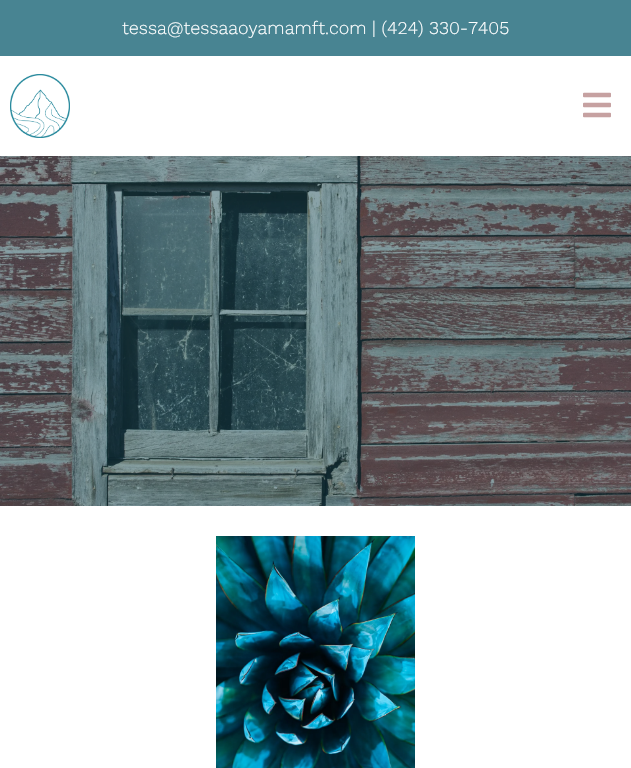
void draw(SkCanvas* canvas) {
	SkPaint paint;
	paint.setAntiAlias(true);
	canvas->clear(0xffffffff);
	paint.setColor(0xff488492);
	canvas->drawRect(SkRect::MakeXYWH(0, 0, 631, 56), paint);
	SkFont f1(fontMgr->matchFamilyStyle("Work Sans", SkFontStyle(300, SkFontStyle::kNormal_Width, SkFontStyle::kUpright_Slant)), 18);
	f1.setSubpixel(true);
	paint.setColor(0xffffffff);
	canvas->drawString("tessa@tessaaoyamamft.com | (424) 330-7405", 122, 34, f1, paint);
	canvas->drawImageRect(SkImages::DeferredFromEncodedData(SkData::MakeFromFileName("img1.png")), SkRect::MakeXYWH(10, 74, 60, 64), SkSamplingOptions());
	canvas->drawImageRect(SkImages::DeferredFromEncodedData(SkData::MakeFromFileName("img2.png")), SkRect::MakeXYWH(583, 92, 28, 26), SkSamplingOptions());
	canvas->drawImageRect(SkImages::DeferredFromEncodedData(SkData::MakeFromFileName("img3.png")), SkRect::MakeXYWH(0, 156, 631, 350), SkSamplingOptions());
	canvas->drawImageRect(SkImages::DeferredFromEncodedData(SkData::MakeFromFileName("img4.png")), SkRect::MakeXYWH(216, 536, 199, 232), SkSamplingOptions());
}
